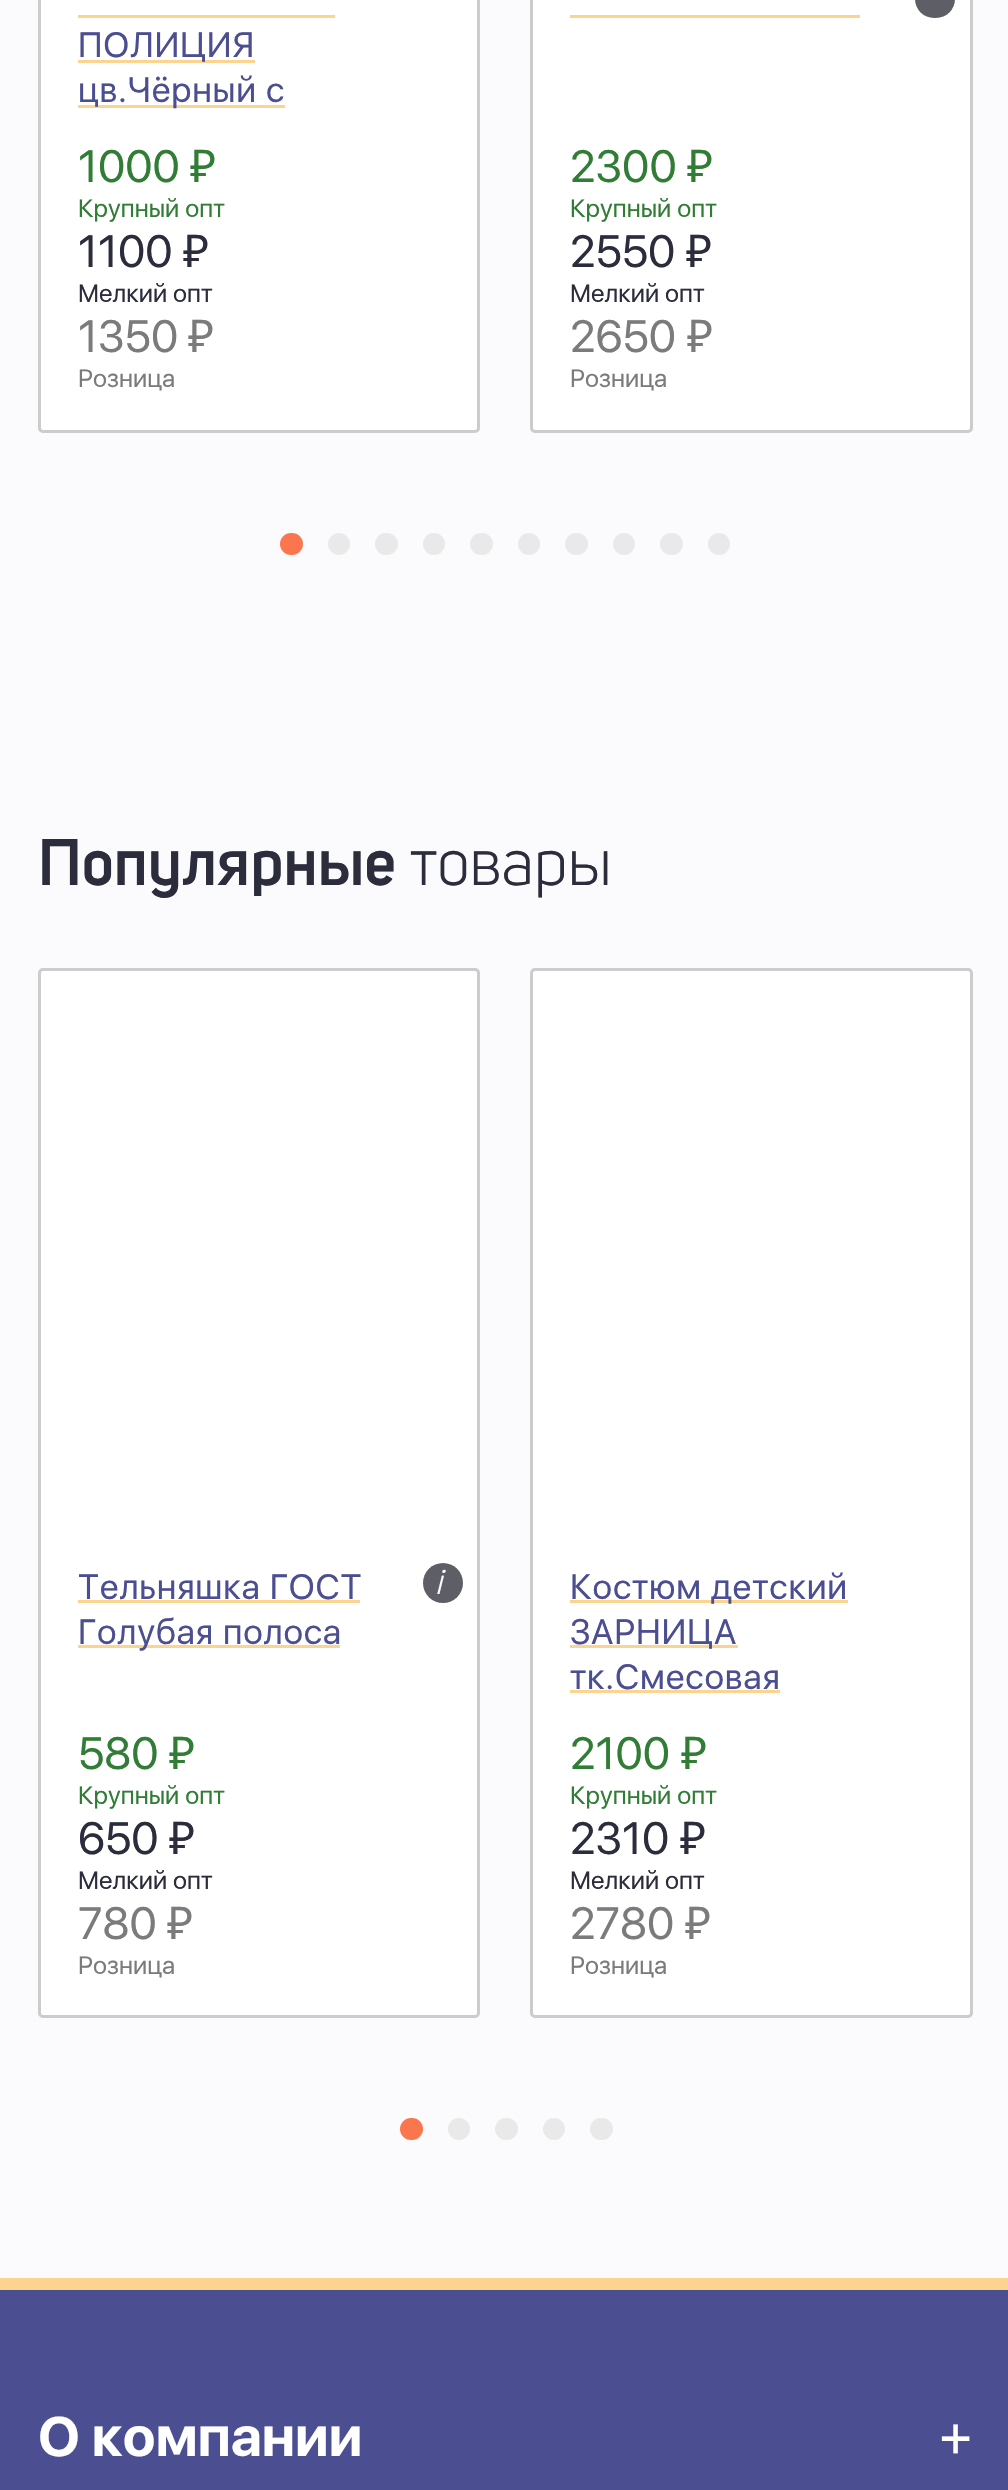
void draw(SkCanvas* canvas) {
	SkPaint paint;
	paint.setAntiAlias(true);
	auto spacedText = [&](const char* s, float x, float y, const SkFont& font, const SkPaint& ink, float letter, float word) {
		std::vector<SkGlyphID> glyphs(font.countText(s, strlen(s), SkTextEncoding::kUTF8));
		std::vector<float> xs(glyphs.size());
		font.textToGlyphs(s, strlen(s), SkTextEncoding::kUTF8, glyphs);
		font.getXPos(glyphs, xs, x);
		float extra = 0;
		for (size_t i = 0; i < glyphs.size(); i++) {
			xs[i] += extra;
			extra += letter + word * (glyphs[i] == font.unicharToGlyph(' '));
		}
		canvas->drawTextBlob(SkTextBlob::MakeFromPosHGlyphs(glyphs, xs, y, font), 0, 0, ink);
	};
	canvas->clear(0xff4b4e91);
	paint.setColor(0xfffbfbfd);
	canvas->drawRect(SkRect::MakeXYWH(0, 0, 1008, 2278), paint);
	paint.setColor(0xffffffff);
	canvas->drawRoundRect(SkRect::MakeXYWH(39.5, -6.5, 439, 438), 3.5, 3.5, paint);
	paint.setStroke(true);
	paint.setStrokeWidth(3);
	paint.setColor(0xffcccccc);
	canvas->drawRoundRect(SkRect::MakeXYWH(39.5, -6.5, 439, 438), 3.5, 3.5, paint);
	paint.setStroke(false);
	paint.setColor(0xfffdd48f);
	canvas->drawRect(SkRect::MakeXYWH(78, 60, 177, 3), paint);
	SkFont f1(fontMgr->matchFamilyStyle("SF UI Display", SkFontStyle::Normal()), 35);
	f1.setSubpixel(true);
	paint.setColor(0xff4b4e91);
	spacedText("ПОЛИЦИЯ", 78, 57, f1, paint, 0.75, 0);
	paint.setColor(0xfffdd48f);
	canvas->drawRect(SkRect::MakeXYWH(78, 15, 257, 3), paint);
	canvas->drawRect(SkRect::MakeXYWH(78, 105, 207, 3), paint);
	paint.setColor(0xff4b4e91);
	spacedText("цв.Чёрный с", 78, 102, f1, paint, 0.75, 0);
	SkFont f2(fontMgr->matchFamilyStyle("SF UI Display", SkFontStyle::Normal()), 45);
	f2.setSubpixel(true);
	paint.setColor(0xff317d36);
	canvas->drawString("1000", 78, 182, f2, paint);
	SkFont f3(fontMgr->matchFamilyStyle("Noto Sans", SkFontStyle::Normal()), 45);
	f3.setSubpixel(true);
	canvas->drawString("₽", 190, 182, f3, paint);
	SkFont f4(fontMgr->matchFamilyStyle("SF UI Display", SkFontStyle::Normal()), 25);
	f4.setSubpixel(true);
	canvas->drawString("Крупный опт", 78, 217, f4, paint);
	paint.setColor(0xff2b2c3c);
	canvas->drawString("1100", 78, 267, f2, paint);
	canvas->drawString("₽", 183, 267, f3, paint);
	canvas->drawString("Мелкий опт", 78, 302, f4, paint);
	paint.setColor(0xff7b7b7b);
	canvas->drawString("1350", 78, 352, f2, paint);
	canvas->drawString("₽", 188, 352, f3, paint);
	canvas->drawString("Розница", 78, 387, f4, paint);
	paint.setColor(0xffffffff);
	canvas->drawRoundRect(SkRect::MakeXYWH(531.5, -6.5, 440, 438), 3.5, 3.5, paint);
	paint.setStroke(true);
	paint.setColor(0xffcccccc);
	canvas->drawRoundRect(SkRect::MakeXYWH(531.5, -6.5, 440, 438), 3.5, 3.5, paint);
	paint.setStroke(false);
	paint.setColor(0xfffdd48f);
	canvas->drawRect(SkRect::MakeXYWH(570, 15, 290, 3), paint);
	paint.setColor(0xff5e5e66);
	canvas->drawRoundRect(SkRect::MakeXYWH(915, -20, 40, 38), 20, 20, paint);
	paint.setColor(0xff317d36);
	canvas->drawString("2300", 570, 182, f2, paint);
	canvas->drawString("₽", 687, 182, f3, paint);
	canvas->drawString("Крупный опт", 570, 217, f4, paint);
	paint.setColor(0xff2b2c3c);
	canvas->drawString("2550", 570, 267, f2, paint);
	canvas->drawString("₽", 686, 267, f3, paint);
	canvas->drawString("Мелкий опт", 570, 302, f4, paint);
	paint.setColor(0xff7b7b7b);
	canvas->drawString("2650", 570, 352, f2, paint);
	canvas->drawString("₽", 687, 352, f3, paint);
	canvas->drawString("Розница", 570, 387, f4, paint);
	paint.setColor(0xfffb754f);
	canvas->drawRoundRect(SkRect::MakeXYWH(280, 533, 23, 22), 11, 11, paint);
	paint.setColor(0xffe9e9e9);
	canvas->drawCircle(339, 544, 11, paint);
	canvas->drawRoundRect(SkRect::MakeXYWH(375, 533, 23, 22), 11, 11, paint);
	canvas->drawCircle(434, 544, 11, paint);
	canvas->drawRoundRect(SkRect::MakeXYWH(470, 533, 23, 22), 11, 11, paint);
	canvas->drawCircle(529, 544, 11, paint);
	canvas->drawRoundRect(SkRect::MakeXYWH(565, 533, 23, 22), 11, 11, paint);
	canvas->drawCircle(624, 544, 11, paint);
	canvas->drawRoundRect(SkRect::MakeXYWH(660, 533, 23, 22), 11, 11, paint);
	canvas->drawCircle(719, 544, 11, paint);
	SkFont f5(fontMgr->matchFamilyStyle("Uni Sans", SkFontStyle(600, SkFontStyle::kNormal_Width, SkFontStyle::kUpright_Slant)), 65);
	f5.setSubpixel(true);
	paint.setColor(0xff2b2c3c);
	canvas->drawString("Популярные", 38, 885, f5, paint);
	SkFont f6(fontMgr->matchFamilyStyle("Uni Sans", SkFontStyle::Normal()), 65);
	f6.setSubpixel(true);
	canvas->drawString("товары", 410, 885, f6, paint);
	paint.setColor(0xffffffff);
	canvas->drawRoundRect(SkRect::MakeXYWH(39.5, 969.5, 439, 1047), 3.5, 3.5, paint);
	paint.setStroke(true);
	paint.setColor(0xffcccccc);
	canvas->drawRoundRect(SkRect::MakeXYWH(39.5, 969.5, 439, 1047), 3.5, 3.5, paint);
	paint.setStroke(false);
	paint.setColor(0xff4b4e91);
	spacedText("Тельняшка ГОСТ", 78, 1599, f1, paint, 0.75, 0);
	paint.setColor(0xfffdd48f);
	canvas->drawRect(SkRect::MakeXYWH(78, 1600, 282, 3), paint);
	canvas->drawRect(SkRect::MakeXYWH(78, 1645, 262, 3), paint);
	paint.setColor(0xff4b4e91);
	spacedText("Голубая полоса", 78, 1644, f1, paint, 0.75, 0);
	paint.setColor(0xff5e5e66);
	canvas->drawCircle(443, 1583, 20, paint);
	SkFont f7(fontMgr->matchFamilyStyle("Uni Sans", SkFontStyle::Italic()), 35);
	f7.setSubpixel(true);
	paint.setColor(0xffffffff);
	canvas->drawString("i", 435, 1594, f7, paint);
	paint.setColor(0xff317d36);
	canvas->drawString("580", 78, 1769, f2, paint);
	canvas->drawString("₽", 169, 1769, f3, paint);
	canvas->drawString("Крупный опт", 78, 1804, f4, paint);
	paint.setColor(0xff2b2c3c);
	canvas->drawString("650", 78, 1854, f2, paint);
	canvas->drawString("₽", 169, 1854, f3, paint);
	canvas->drawString("Мелкий опт", 78, 1889, f4, paint);
	paint.setColor(0xff7b7b7b);
	canvas->drawString("780", 78, 1939, f2, paint);
	canvas->drawString("₽", 167, 1939, f3, paint);
	canvas->drawString("Розница", 78, 1974, f4, paint);
	paint.setColor(0xffffffff);
	canvas->drawRoundRect(SkRect::MakeXYWH(531.5, 969.5, 440, 1047), 3.5, 3.5, paint);
	paint.setStroke(true);
	paint.setColor(0xffcccccc);
	canvas->drawRoundRect(SkRect::MakeXYWH(531.5, 969.5, 440, 1047), 3.5, 3.5, paint);
	paint.setStroke(false);
	paint.setColor(0xfffdd48f);
	canvas->drawRect(SkRect::MakeXYWH(570, 1600, 278, 3), paint);
	paint.setColor(0xff4b4e91);
	spacedText("Костюм детский", 570, 1599, f1, paint, 0.75, 0);
	paint.setColor(0xfffdd48f);
	canvas->drawRect(SkRect::MakeXYWH(570, 1645, 168, 3), paint);
	paint.setColor(0xff4b4e91);
	spacedText("ЗАРНИЦА", 570, 1644, f1, paint, 0.75, 0);
	spacedText("тк.Смесовая", 570, 1689, f1, paint, 0.75, 0);
	paint.setColor(0xfffdd48f);
	canvas->drawRect(SkRect::MakeXYWH(570, 1690, 210, 3), paint);
	paint.setColor(0xff317d36);
	canvas->drawString("2100", 570, 1769, f2, paint);
	canvas->drawString("₽", 681, 1769, f3, paint);
	canvas->drawString("Крупный опт", 570, 1804, f4, paint);
	paint.setColor(0xff2b2c3c);
	canvas->drawString("2310", 570, 1854, f2, paint);
	canvas->drawString("₽", 680, 1854, f3, paint);
	canvas->drawString("Мелкий опт", 570, 1889, f4, paint);
	paint.setColor(0xff7b7b7b);
	canvas->drawString("2780", 570, 1939, f2, paint);
	canvas->drawString("₽", 685, 1939, f3, paint);
	canvas->drawString("Розница", 570, 1974, f4, paint);
	paint.setColor(0xfffb754f);
	canvas->drawRoundRect(SkRect::MakeXYWH(400, 2118, 23, 22), 11, 11, paint);
	paint.setColor(0xffe9e9e9);
	canvas->drawCircle(459, 2129, 11, paint);
	canvas->drawRoundRect(SkRect::MakeXYWH(495, 2118, 23, 22), 11, 11, paint);
	canvas->drawCircle(554, 2129, 11, paint);
	canvas->drawRoundRect(SkRect::MakeXYWH(590, 2118, 23, 22), 11, 11, paint);
	paint.setColor(0xfffdd48f);
	canvas->drawRect(SkRect::MakeXYWH(0, 2278, 1008, 12), paint);
	SkFont f8(fontMgr->matchFamilyStyle("SF UI Display", SkFontStyle::Bold()), 55);
	f8.setSubpixel(true);
	paint.setColor(0xffffffff);
	canvas->drawString("О компании", 38, 2456, f8, paint);
	SkFont f9(fontMgr->matchFamilyStyle("SF UI Display", SkFontStyle::Normal()), 55);
	f9.setSubpixel(true);
	canvas->drawString("+", 939, 2454, f9, paint);
}
